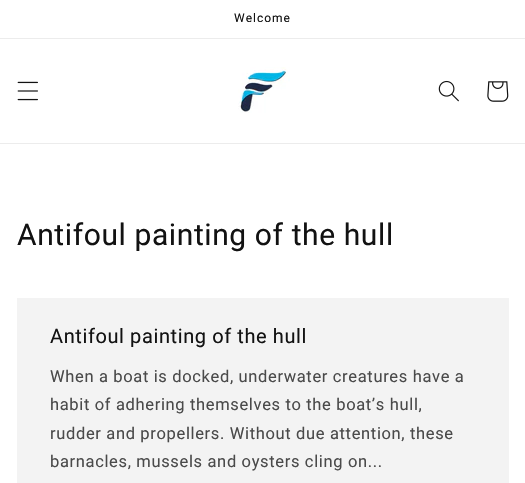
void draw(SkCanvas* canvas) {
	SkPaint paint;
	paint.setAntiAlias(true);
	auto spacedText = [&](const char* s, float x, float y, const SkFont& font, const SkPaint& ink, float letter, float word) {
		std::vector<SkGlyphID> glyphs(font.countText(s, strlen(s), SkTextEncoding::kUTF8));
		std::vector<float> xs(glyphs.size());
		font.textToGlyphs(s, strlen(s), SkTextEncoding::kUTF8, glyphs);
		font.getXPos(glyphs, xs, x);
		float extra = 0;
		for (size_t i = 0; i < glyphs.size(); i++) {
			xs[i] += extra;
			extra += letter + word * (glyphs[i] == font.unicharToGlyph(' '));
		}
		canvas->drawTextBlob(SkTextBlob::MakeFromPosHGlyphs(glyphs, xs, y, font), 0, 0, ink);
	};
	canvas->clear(0xffffffff);
	paint.setColor(0xffececec);
	canvas->drawRect(SkRect::MakeXYWH(0, 38, 525, 1), paint);
	SkFont f1(fontMgr->matchFamilyStyle("Roboto", SkFontStyle::Normal()), 12);
	f1.setSubpixel(true);
	paint.setColor(0xff121212);
	spacedText("Welcome", 234, 22, f1, paint, 1, 0);
	paint.setColor(0xffececec);
	canvas->drawRect(SkRect::MakeXYWH(0, 143, 525, 1), paint);
	canvas->drawImageRect(SkImages::DeferredFromEncodedData(SkData::MakeFromFileName("img1.png")), SkRect::MakeXYWH(17, 81, 21, 20), SkSamplingOptions());
	canvas->drawImageRect(SkImages::DeferredFromEncodedData(SkData::MakeFromFileName("img2.png")), SkRect::MakeXYWH(238, 67, 52, 46), SkSamplingOptions());
	canvas->drawImageRect(SkImages::DeferredFromEncodedData(SkData::MakeFromFileName("img3.png")), SkRect::MakeXYWH(438, 80, 21, 22), SkSamplingOptions());
	canvas->drawImageRect(SkImages::DeferredFromEncodedData(SkData::MakeFromFileName("img4.png")), SkRect::MakeXYWH(487, 81, 22, 21), SkSamplingOptions());
	SkFont f2(fontMgr->matchFamilyStyle("Roboto", SkFontStyle::Normal()), 30);
	f2.setSubpixel(true);
	paint.setColor(0xff121212);
	spacedText("Antifoul painting of the hull", 17, 245, f2, paint, 0.6, 0);
	paint.setColor(0xfff3f3f3);
	canvas->drawRect(SkRect::MakeXYWH(17, 298, 492, 185), paint);
	SkFont f3(fontMgr->matchFamilyStyle("Roboto", SkFontStyle::Normal()), 20);
	f3.setSubpixel(true);
	paint.setColor(0xff121212);
	spacedText("Antifoul painting of the hull", 50, 343, f3, paint, 0.6, 0);
	SkFont f4(fontMgr->matchFamilyStyle("Roboto", SkFontStyle::Normal()), 16.5);
	f4.setSubpixel(true);
	paint.setColor(0xff4a4a4a);
	spacedText("When a boat is docked, underwater creatures have a", 50, 382, f4, paint, 0.65, 0);
	spacedText("habit of adhering themselves to the boat’s hull,", 50, 410, f4, paint, 0.65, 0);
	spacedText("rudder and propellers. Without due attention, these", 50, 439, f4, paint, 0.65, 0);
	spacedText("barnacles, mussels and oysters cling on...", 50, 467, f4, paint, 0.65, 0);
}
